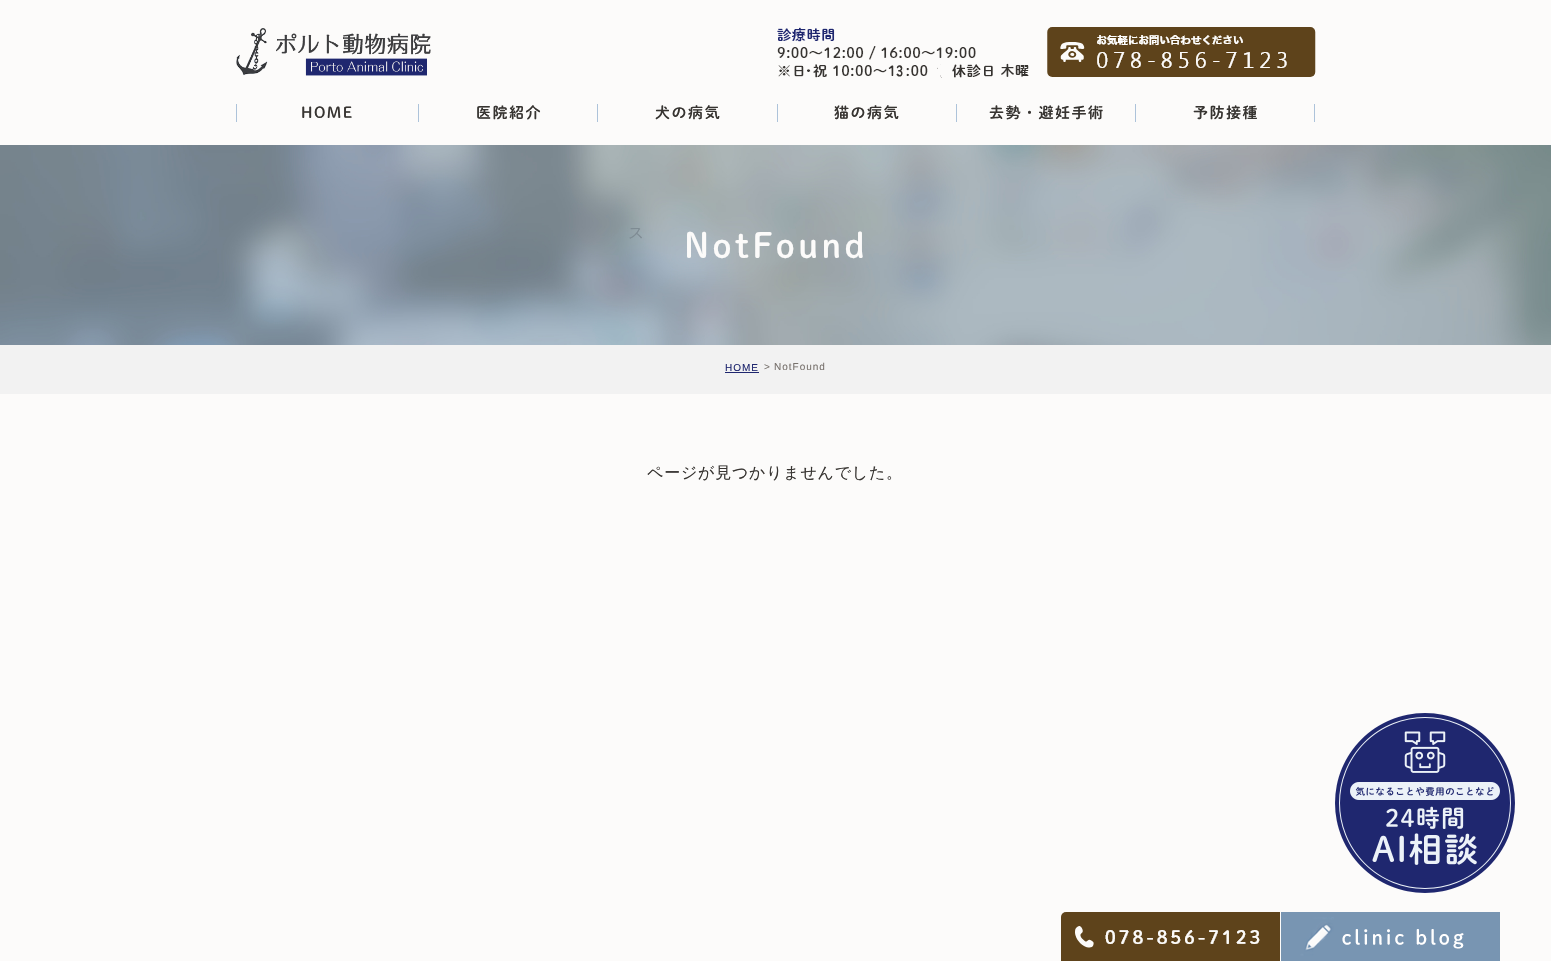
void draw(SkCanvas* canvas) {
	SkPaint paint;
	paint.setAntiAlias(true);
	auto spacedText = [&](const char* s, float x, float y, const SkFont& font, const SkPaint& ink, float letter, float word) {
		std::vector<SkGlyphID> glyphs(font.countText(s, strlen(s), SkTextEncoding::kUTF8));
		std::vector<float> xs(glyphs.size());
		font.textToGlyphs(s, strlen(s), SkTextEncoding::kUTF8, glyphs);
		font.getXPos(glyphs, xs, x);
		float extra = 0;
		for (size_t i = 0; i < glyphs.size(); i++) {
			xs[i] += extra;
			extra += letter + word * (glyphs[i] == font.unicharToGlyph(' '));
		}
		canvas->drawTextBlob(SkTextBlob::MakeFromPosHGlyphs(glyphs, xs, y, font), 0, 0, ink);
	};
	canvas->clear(0xfffcfbfa);
	canvas->drawImageRect(SkImages::DeferredFromEncodedData(SkData::MakeFromFileName("img1.png")), SkRect::MakeXYWH(236, 28, 195, 48), SkSamplingOptions());
	canvas->drawImageRect(SkImages::DeferredFromEncodedData(SkData::MakeFromFileName("img2.png")), SkRect::MakeXYWH(777, 27, 539, 51), SkSamplingOptions());
	paint.setColor(0xffadc3da);
	canvas->drawRect(SkRect::MakeXYWH(236, 104, 1, 18), paint);
	SkFont f1(fontMgr->matchFamilyStyle("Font", SkFontStyle(600, SkFontStyle::kNormal_Width, SkFontStyle::kUpright_Slant)), 15);
	f1.setSubpixel(true);
	paint.setColor(0xff373431);
	spacedText("HOME", 301, 118, f1, paint, 1.5, 0);
	paint.setColor(0xffadc3da);
	canvas->drawRect(SkRect::MakeXYWH(418, 104, 1, 18), paint);
	paint.setColor(0xff373431);
	spacedText("医院紹介", 476, 118, f1, paint, 1.5, 0);
	paint.setColor(0xffadc3da);
	canvas->drawRect(SkRect::MakeXYWH(597, 104, 1, 18), paint);
	canvas->drawImageRect(SkImages::DeferredFromEncodedData(SkData::MakeFromFileName("img3.png")), SkRect::MakeXYWH(0, 145, 1551, 200), SkSamplingOptions());
	SkFont f2(fontMgr->matchFamilyStyle("WenQuanYi Zen Hei", SkFontStyle(500, SkFontStyle::kNormal_Width, SkFontStyle::kUpright_Slant)), 16);
	f2.setSubpixel(true);
	paint.setColor(0xff7e8b93);
	spacedText("ス", 628, 238, f2, paint, 0.75, 0);
	paint.setColor(0xff373431);
	spacedText("犬の病気", 655, 118, f1, paint, 1.5, 0);
	paint.setColor(0xffadc3da);
	canvas->drawRect(SkRect::MakeXYWH(777, 104, 1, 18), paint);
	paint.setColor(0xff373431);
	spacedText("猫の病気", 834, 118, f1, paint, 1.5, 0);
	paint.setColor(0xffadc3da);
	canvas->drawRect(SkRect::MakeXYWH(956, 104, 1, 18), paint);
	paint.setColor(0xff373431);
	spacedText("去勢・避妊手術", 989, 118, f1, paint, 1.5, 0);
	paint.setColor(0xffadc3da);
	canvas->drawRect(SkRect::MakeXYWH(1135, 104, 1, 18), paint);
	paint.setColor(0xff373431);
	spacedText("予防接種", 1193, 118, f1, paint, 1.5, 0);
	paint.setColor(0xffadc3da);
	canvas->drawRect(SkRect::MakeXYWH(1314, 104, 1, 18), paint);
	SkFont f3(fontMgr->matchFamilyStyle("Font", SkFontStyle(600, SkFontStyle::kNormal_Width, SkFontStyle::kUpright_Slant)), 34);
	f3.setSubpixel(true);
	paint.setColor(0xfffcfbfa);
	spacedText("NotFound", 684, 258, f3, paint, 3.5, 0);
	paint.setColor(0xfff2f2f2);
	canvas->drawRect(SkRect::MakeXYWH(0, 345, 1551, 49), paint);
	SkFont f4(fontMgr->matchFamilyStyle("Liberation Sans", SkFontStyle::Normal()), 10);
	f4.setSubpixel(true);
	paint.setColor(0xff1f276f);
	spacedText("HOME", 725, 371, f4, paint, 1, 0);
	canvas->drawRect(SkRect::MakeXYWH(725, 372, 34, 1), paint);
	paint.setColor(0xff77716c);
	spacedText(">", 764, 370, f4, paint, 1, 0);
	spacedText("NotFound", 774, 370, f4, paint, 1, 0);
	paint.setColor(0xff373431);
	spacedText("ページが見つかりませんでした。", 647, 478, f2, paint, 0.75, 0);
	canvas->drawImageRect(SkImages::DeferredFromEncodedData(SkData::MakeFromFileName("img4.png")), SkRect::MakeXYWH(1335, 713, 180, 180), SkSamplingOptions());
	canvas->drawImageRect(SkImages::DeferredFromEncodedData(SkData::MakeFromFileName("img5.png")), SkRect::MakeXYWH(1061, 912, 219, 49), SkSamplingOptions());
	canvas->drawImageRect(SkImages::DeferredFromEncodedData(SkData::MakeFromFileName("img6.png")), SkRect::MakeXYWH(1281, 912, 219, 49), SkSamplingOptions());
}
